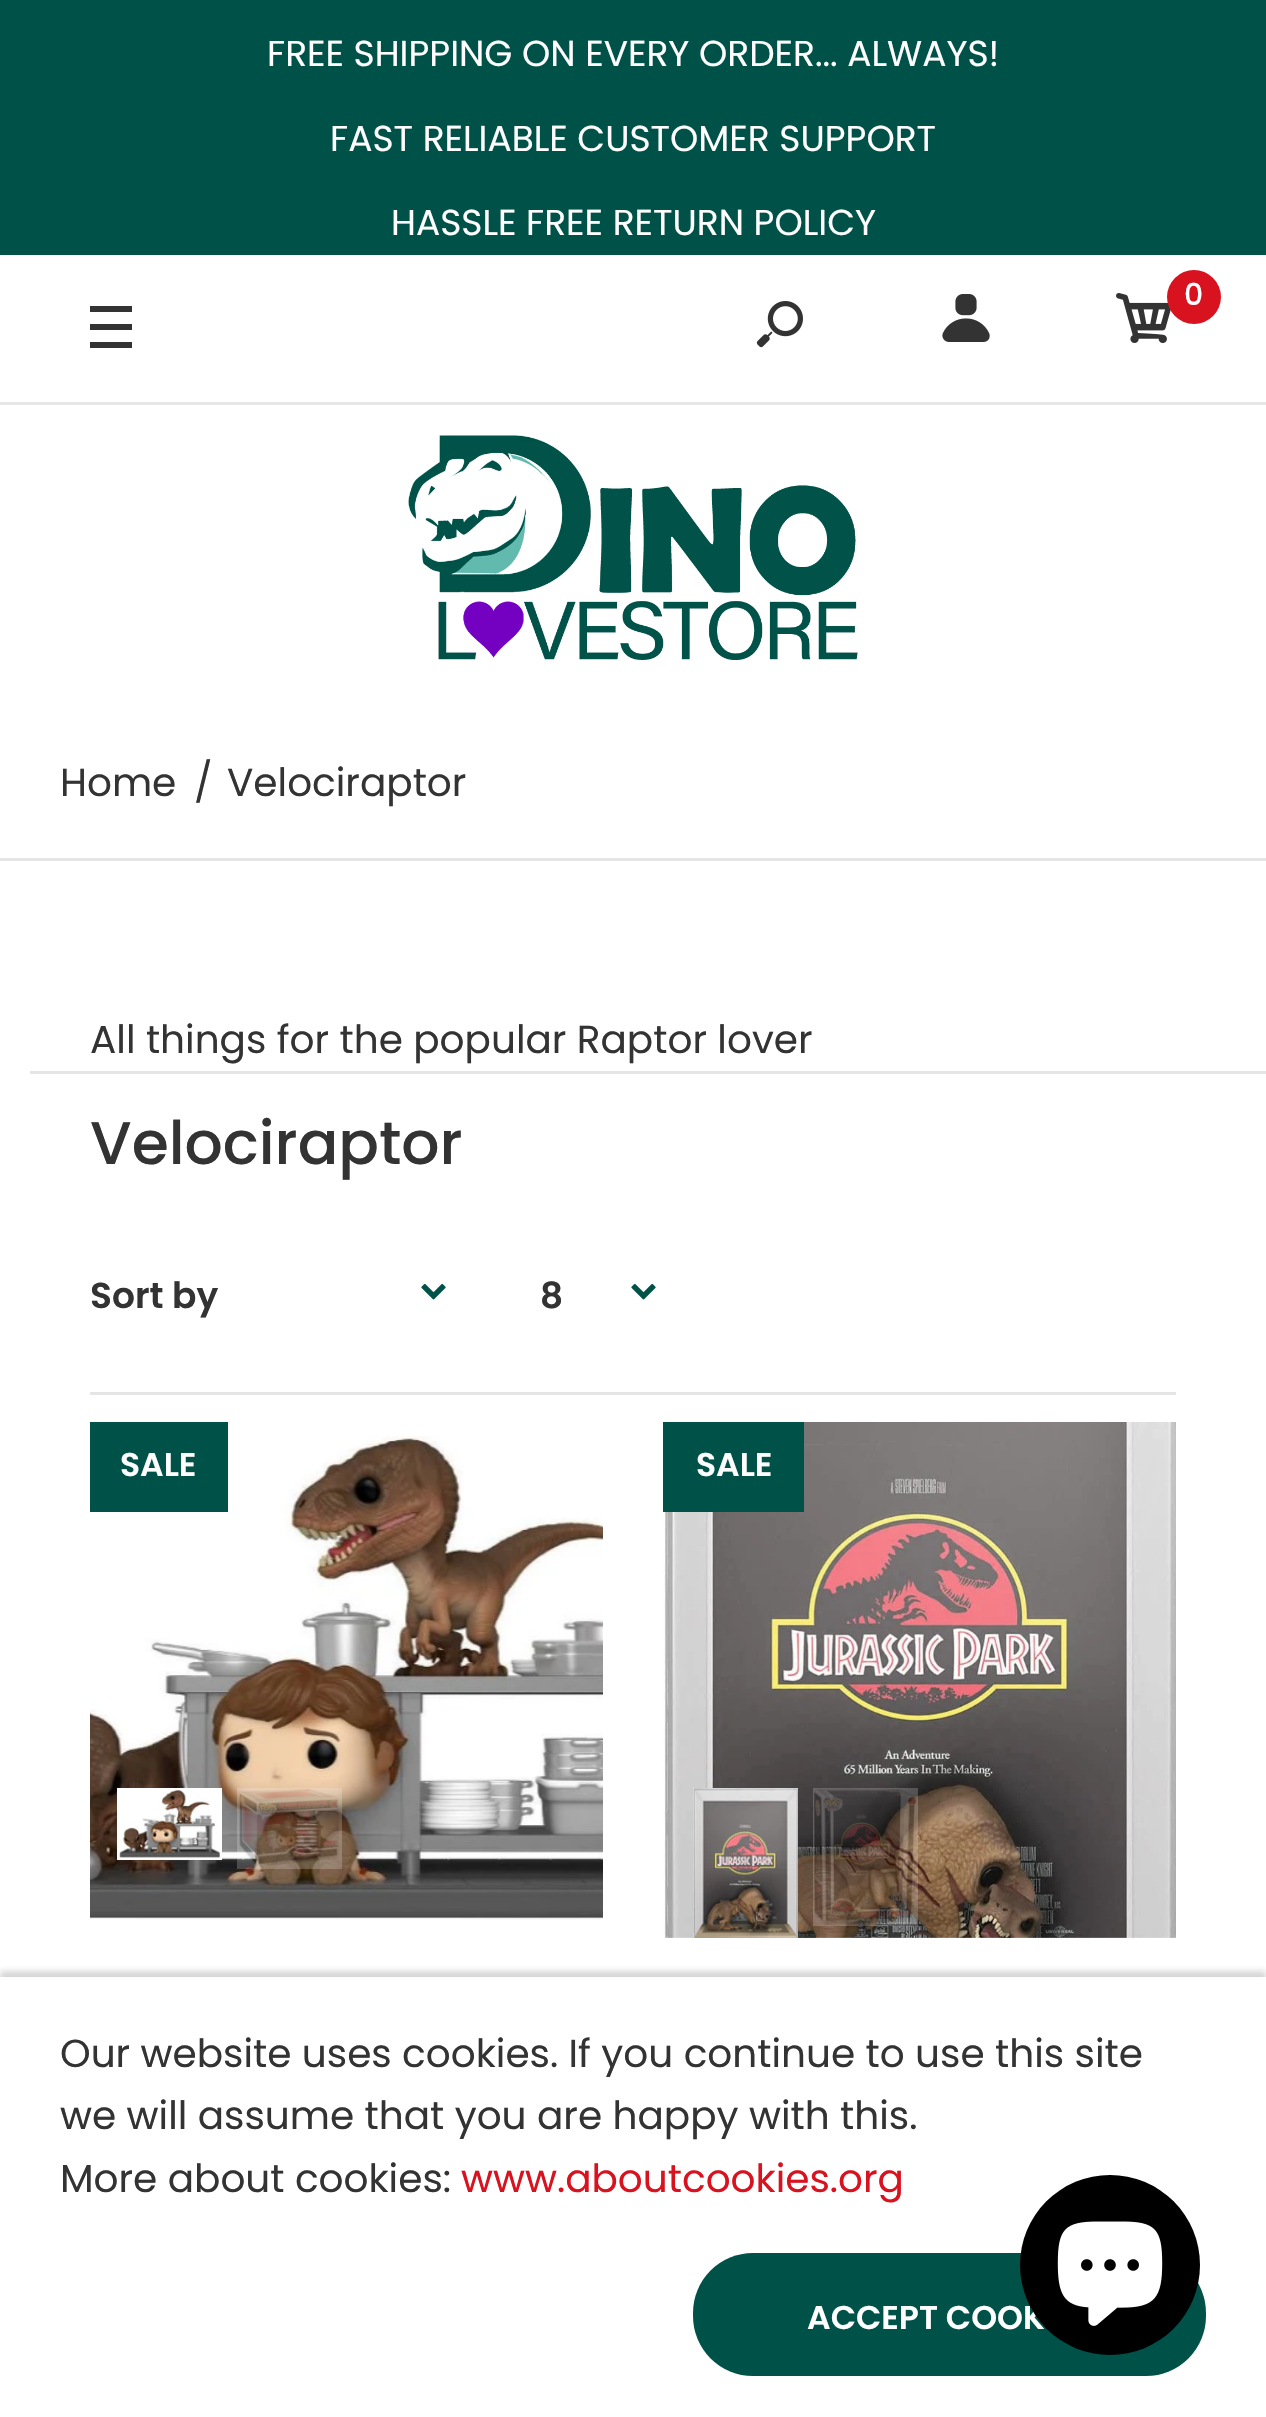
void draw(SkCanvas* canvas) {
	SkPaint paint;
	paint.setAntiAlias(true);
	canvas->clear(0xffffffff);
	paint.setColor(0xff005249);
	canvas->drawRect(SkRect::MakeXYWH(0, 0, 1266, 255), paint);
	SkFont f1(fontMgr->matchFamilyStyle("Poppins", SkFontStyle::Normal()), 36);
	f1.setSubpixel(true);
	paint.setColor(0xffffffff);
	canvas->drawString("FREE SHIPPING ON EVERY ORDER... ALWAYS!", 267, 66, f1, paint);
	canvas->drawString("FAST RELIABLE CUSTOMER SUPPORT", 330, 151, f1, paint);
	canvas->drawString("HASSLE FREE RETURN POLICY", 391, 235, f1, paint);
	paint.setColor(0xffe7e7e7);
	canvas->drawRect(SkRect::MakeXYWH(0, 402, 1266, 3), paint);
	paint.setColor(0xff333333);
	canvas->drawRect(SkRect::MakeXYWH(90, 324, 42, 6), paint);
	canvas->drawRect(SkRect::MakeXYWH(90, 306, 42, 6), paint);
	canvas->drawRect(SkRect::MakeXYWH(90, 342, 42, 6), paint);
	canvas->drawImageRect(SkImages::DeferredFromEncodedData(SkData::MakeFromFileName("img1.png")), SkRect::MakeXYWH(756, 301, 47, 47), SkSamplingOptions());
	canvas->drawImageRect(SkImages::DeferredFromEncodedData(SkData::MakeFromFileName("img2.png")), SkRect::MakeXYWH(942, 294, 48, 48), SkSamplingOptions());
	canvas->drawImageRect(SkImages::DeferredFromEncodedData(SkData::MakeFromFileName("img3.png")), SkRect::MakeXYWH(1116, 293, 55, 50), SkSamplingOptions());
	paint.setColor(0xffd9121f);
	canvas->drawCircle(1194, 297, 27, paint);
	SkFont f2(fontMgr->matchFamilyStyle("Poppins", SkFontStyle(500, SkFontStyle::kNormal_Width, SkFontStyle::kUpright_Slant)), 30);
	f2.setSubpixel(true);
	paint.setColor(0xffffffff);
	canvas->drawString("0", 1184, 305, f2, paint);
	canvas->drawImageRect(SkImages::DeferredFromEncodedData(SkData::MakeFromFileName("img4.png")), SkRect::MakeXYWH(408, 435, 450, 225), SkSamplingOptions());
	paint.setColor(0xffe5e5e5);
	canvas->drawRect(SkRect::MakeXYWH(0, 858, 1266, 3), paint);
	SkFont f3(fontMgr->matchFamilyStyle("Poppins", SkFontStyle::Normal()), 39);
	f3.setSubpixel(true);
	paint.setColor(0xff333333);
	canvas->drawString("Home", 60, 796, f3, paint);
	canvas->drawString("/", 194, 796, f3, paint);
	canvas->drawString("Velociraptor", 227, 796, f3, paint);
	canvas->drawString("All things for the popular Raptor lover", 90, 1053, f3, paint);
	paint.setColor(0xffe5e5e5);
	canvas->drawRect(SkRect::MakeXYWH(30, 1071, 1236, 3), paint);
	SkFont f4(fontMgr->matchFamilyStyle("Poppins", SkFontStyle(500, SkFontStyle::kNormal_Width, SkFontStyle::kUpright_Slant)), 60);
	f4.setSubpixel(true);
	paint.setColor(0xff333333);
	canvas->drawString("Velociraptor", 90, 1164, f4, paint);
	SkFont f5(fontMgr->matchFamilyStyle("Poppins", SkFontStyle(600, SkFontStyle::kNormal_Width, SkFontStyle::kUpright_Slant)), 36);
	f5.setSubpixel(true);
	canvas->drawString("Sort by", 90, 1308, f5, paint);
	canvas->drawImageRect(SkImages::DeferredFromEncodedData(SkData::MakeFromFileName("img5.png")), SkRect::MakeXYWH(421, 1283, 25, 17), SkSamplingOptions());
	canvas->drawString("8", 540, 1308, f5, paint);
	canvas->drawImageRect(SkImages::DeferredFromEncodedData(SkData::MakeFromFileName("img5.png")), SkRect::MakeXYWH(631, 1283, 25, 17), SkSamplingOptions());
	paint.setColor(0xffe5e5e5);
	canvas->drawRect(SkRect::MakeXYWH(90, 1392, 1086, 3), paint);
	canvas->drawImageRect(SkImages::DeferredFromEncodedData(SkData::MakeFromFileName("img6.png")), SkRect::MakeXYWH(90, 1436, 513, 484), SkSamplingOptions());
	paint.setColor(0xff005249);
	canvas->drawRect(SkRect::MakeXYWH(90, 1422, 138, 90), paint);
	SkFont f6(fontMgr->matchFamilyStyle("Poppins", SkFontStyle(600, SkFontStyle::kNormal_Width, SkFontStyle::kUpright_Slant)), 33);
	f6.setSubpixel(true);
	paint.setColor(0xffffffff);
	canvas->drawString("SALE", 120, 1476, f6, paint);
	canvas->drawImageRect(SkImages::DeferredFromEncodedData(SkData::MakeFromFileName("img7.png")), SkRect::MakeXYWH(117, 1788, 105, 72), SkSamplingOptions());
	canvas->drawImageRect(SkImages::DeferredFromEncodedData(SkData::MakeFromFileName("img8.png")), SkRect::MakeXYWH(237, 1788, 105, 81), SkSamplingOptions());
	canvas->drawImageRect(SkImages::DeferredFromEncodedData(SkData::MakeFromFileName("img9.png")), SkRect::MakeXYWH(663, 1422, 513, 516), SkSamplingOptions());
	paint.setColor(0xff005249);
	canvas->drawRect(SkRect::MakeXYWH(663, 1422, 141, 90), paint);
	paint.setColor(0xffffffff);
	canvas->drawString("SALE", 696, 1476, f6, paint);
	canvas->drawImageRect(SkImages::DeferredFromEncodedData(SkData::MakeFromFileName("img10.png")), SkRect::MakeXYWH(693, 1788, 105, 150), SkSamplingOptions());
	canvas->drawImageRect(SkImages::DeferredFromEncodedData(SkData::MakeFromFileName("img11.png")), SkRect::MakeXYWH(813, 1788, 105, 138), SkSamplingOptions());
	paint.setColor(0x33323232);
	paint.setMaskFilter(SkMaskFilter::MakeBlur(kNormal_SkBlurStyle, 3));
	canvas->drawRect(SkRect::MakeXYWH(0, 1971, 1266, 441), paint);
	paint.setMaskFilter(nullptr);
	paint.setColor(0xffffffff);
	canvas->drawRect(SkRect::MakeXYWH(0, 1977, 1266, 440), paint);
	paint.setColor(0xff333333);
	canvas->drawString("Our website uses cookies. If you continue to use this site", 60, 2067, f3, paint);
	canvas->drawString("we will assume that you are happy with this.", 60, 2129, f3, paint);
	canvas->drawString("More about cookies:", 60, 2192, f3, paint);
	paint.setColor(0xffd9121f);
	canvas->drawString("www.aboutcookies.org", 461, 2192, f3, paint);
	paint.setColor(0xff005249);
	canvas->drawRoundRect(SkRect::MakeXYWH(693, 2253, 513, 123), 60, 60, paint);
	paint.setColor(0xffffffff);
	canvas->drawString("ACCEPT COOK", 807, 2329, f6, paint);
	paint.setColor(0xff000000);
	canvas->drawCircle(1110, 2265, 90, paint);
	canvas->drawImageRect(SkImages::DeferredFromEncodedData(SkData::MakeFromFileName("img12.png")), SkRect::MakeXYWH(1057, 2221, 106, 105), SkSamplingOptions());
}
